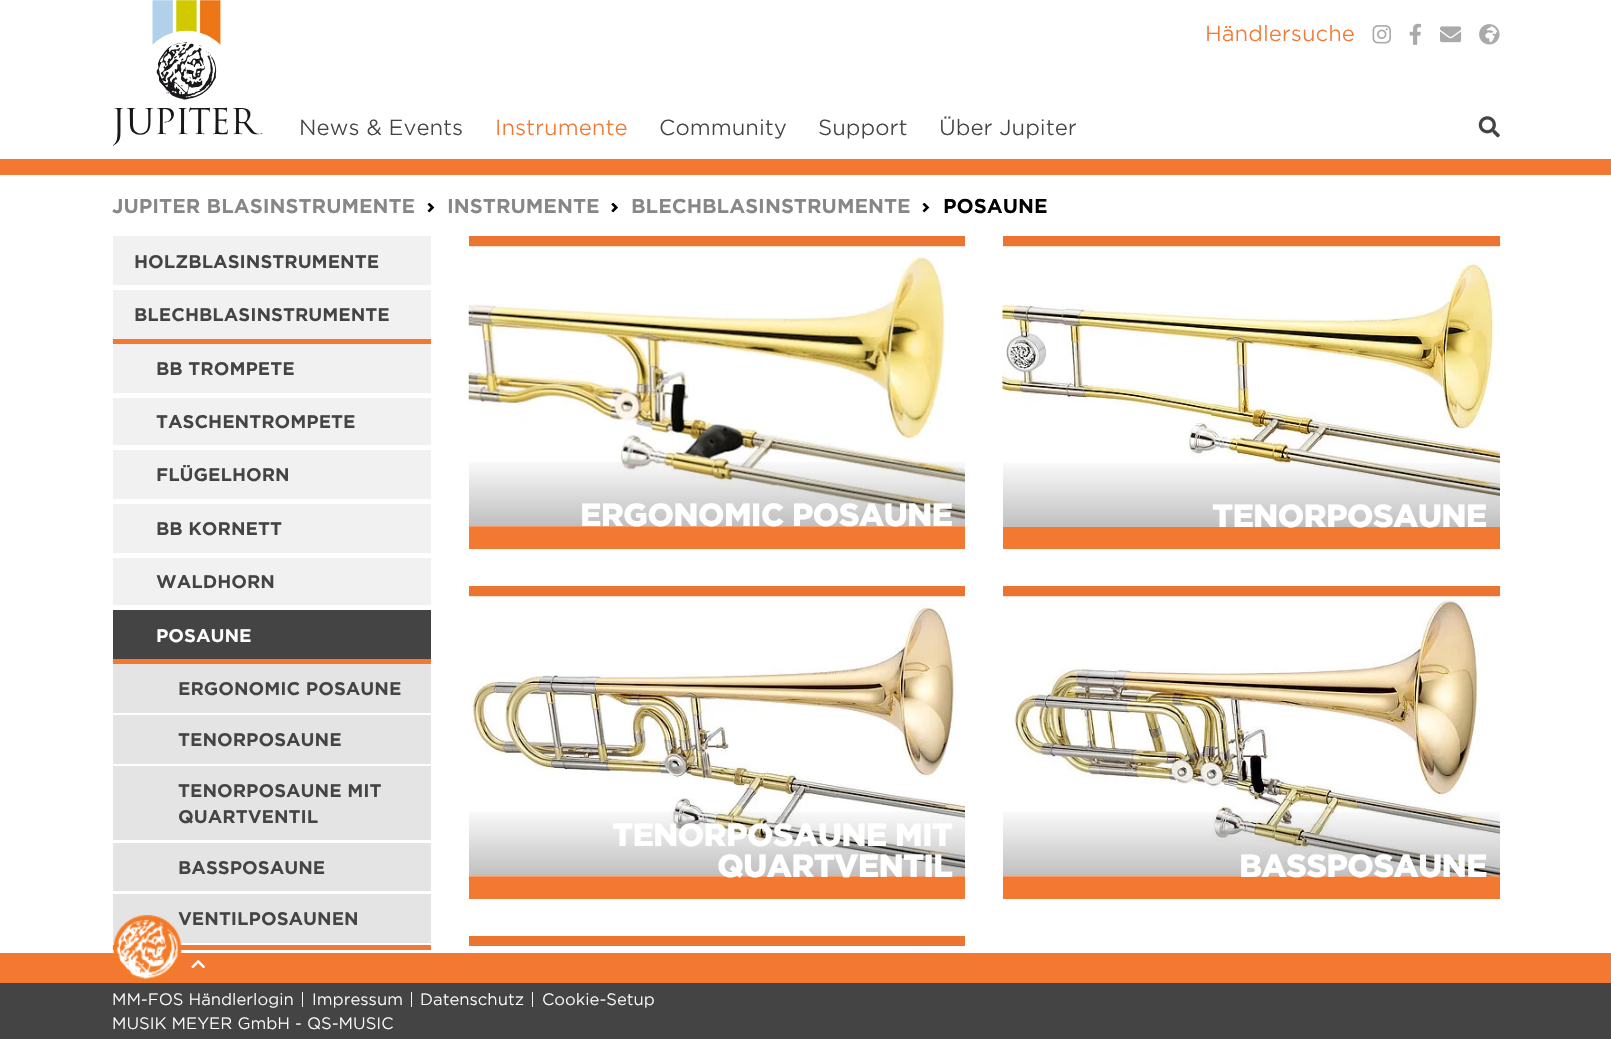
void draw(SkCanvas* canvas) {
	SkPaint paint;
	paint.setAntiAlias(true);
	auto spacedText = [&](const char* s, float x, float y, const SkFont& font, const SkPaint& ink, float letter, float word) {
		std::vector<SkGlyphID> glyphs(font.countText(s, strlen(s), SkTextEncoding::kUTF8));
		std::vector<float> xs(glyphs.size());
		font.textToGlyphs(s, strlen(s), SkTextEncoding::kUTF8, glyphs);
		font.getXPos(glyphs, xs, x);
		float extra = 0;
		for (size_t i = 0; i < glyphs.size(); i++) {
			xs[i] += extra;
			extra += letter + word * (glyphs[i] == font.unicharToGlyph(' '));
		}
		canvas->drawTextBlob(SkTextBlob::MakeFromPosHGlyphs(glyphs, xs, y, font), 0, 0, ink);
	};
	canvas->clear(0xffffffff);
	paint.setColor(0xfff37832);
	canvas->drawRect(SkRect::MakeXYWH(0, 159, 1611, 16), paint);
	canvas->drawImageRect(SkImages::DeferredFromEncodedData(SkData::MakeFromFileName("img1.png")), SkRect::MakeXYWH(113, 0, 150, 146), SkSamplingOptions());
	SkFont f1(fontMgr->matchFamilyStyle("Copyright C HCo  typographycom", SkFontStyle(300, SkFontStyle::kNormal_Width, SkFontStyle::kUpright_Slant)), 21);
	f1.setSubpixel(true);
	canvas->drawString("Händlersuche", 1205, 41, f1, paint);
	canvas->drawImageRect(SkImages::DeferredFromEncodedData(SkData::MakeFromFileName("img2.png")), SkRect::MakeXYWH(1372, 25, 19, 19), SkSamplingOptions());
	canvas->drawImageRect(SkImages::DeferredFromEncodedData(SkData::MakeFromFileName("img3.png")), SkRect::MakeXYWH(1409, 23, 12, 22), SkSamplingOptions());
	canvas->drawImageRect(SkImages::DeferredFromEncodedData(SkData::MakeFromFileName("img4.png")), SkRect::MakeXYWH(1440, 26, 22, 17), SkSamplingOptions());
	canvas->drawImageRect(SkImages::DeferredFromEncodedData(SkData::MakeFromFileName("img5.png")), SkRect::MakeXYWH(1479, 24, 21, 21), SkSamplingOptions());
	paint.setColor(0xff444444);
	canvas->drawString("News & Events", 299, 135, f1, paint);
	paint.setColor(0xfff37832);
	canvas->drawString("Instrumente", 495, 135, f1, paint);
	paint.setColor(0xff444444);
	canvas->drawString("Community", 659, 135, f1, paint);
	canvas->drawString("Support", 818, 135, f1, paint);
	canvas->drawString("Über Jupiter", 939, 135, f1, paint);
	canvas->drawImageRect(SkImages::DeferredFromEncodedData(SkData::MakeFromFileName("img6.png")), SkRect::MakeXYWH(1478, 116, 22, 22), SkSamplingOptions());
	SkFont f2(fontMgr->matchFamilyStyle("Copyright C HCo  typographycom", SkFontStyle::Normal()), 19.25);
	f2.setSubpixel(true);
	paint.setColor(0xff868786);
	canvas->drawString("JUPITER BLASINSTRUMENTE", 112, 213, f2, paint);
	canvas->drawImageRect(SkImages::DeferredFromEncodedData(SkData::MakeFromFileName("img7.png")), SkRect::MakeXYWH(427, 203, 8, 10), SkSamplingOptions());
	canvas->drawString("INSTRUMENTE", 447, 213, f2, paint);
	canvas->drawImageRect(SkImages::DeferredFromEncodedData(SkData::MakeFromFileName("img8.png")), SkRect::MakeXYWH(611, 203, 7, 10), SkSamplingOptions());
	canvas->drawString("BLECHBLASINSTRUMENTE", 631, 213, f2, paint);
	canvas->drawImageRect(SkImages::DeferredFromEncodedData(SkData::MakeFromFileName("img7.png")), SkRect::MakeXYWH(922, 203, 8, 10), SkSamplingOptions());
	paint.setColor(0xff000000);
	canvas->drawString("POSAUNE", 943, 213, f2, paint);
	paint.setColor(0xfff1f1f1);
	canvas->drawRect(SkRect::MakeXYWH(113, 236, 318, 49), paint);
	SkFont f3(fontMgr->matchFamilyStyle("Copyright C HCo  typographycom", SkFontStyle::Normal()), 17.6);
	f3.setSubpixel(true);
	paint.setColor(0xff444444);
	canvas->drawString("HOLZBLASINSTRUMENTE", 134, 268, f3, paint);
	paint.setColor(0xfff1f1f1);
	canvas->drawRect(SkRect::MakeXYWH(113, 290, 318, 49), paint);
	paint.setColor(0xff444444);
	canvas->drawString("BLECHBLASINSTRUMENTE", 134, 321, f3, paint);
	paint.setColor(0xfff37832);
	canvas->drawRect(SkRect::MakeXYWH(113, 339, 318, 5), paint);
	paint.setColor(0xfff1f1f1);
	canvas->drawRect(SkRect::MakeXYWH(113, 344, 318, 49), paint);
	paint.setColor(0xff444444);
	canvas->drawString("BB TROMPETE", 156, 375, f3, paint);
	paint.setColor(0xfff1f1f1);
	canvas->drawRect(SkRect::MakeXYWH(113, 398, 318, 47), paint);
	paint.setColor(0xff444444);
	canvas->drawString("TASCHENTROMPETE", 156, 428, f3, paint);
	paint.setColor(0xfff1f1f1);
	canvas->drawRect(SkRect::MakeXYWH(113, 450, 318, 49), paint);
	paint.setColor(0xff444444);
	canvas->drawString("FLÜGELHORN", 156, 481, f3, paint);
	paint.setColor(0xfff1f1f1);
	canvas->drawRect(SkRect::MakeXYWH(113, 504, 318, 49), paint);
	paint.setColor(0xff444444);
	canvas->drawString("BB KORNETT", 156, 535, f3, paint);
	paint.setColor(0xfff1f1f1);
	canvas->drawRect(SkRect::MakeXYWH(113, 558, 318, 47), paint);
	paint.setColor(0xff444444);
	canvas->drawString("WALDHORN", 156, 588, f3, paint);
	canvas->drawRect(SkRect::MakeXYWH(113, 610, 318, 49), paint);
	paint.setColor(0xffffffff);
	canvas->drawString("POSAUNE", 156, 642, f3, paint);
	paint.setColor(0xfff37832);
	canvas->drawRect(SkRect::MakeXYWH(113, 659, 318, 5), paint);
	canvas->drawRect(SkRect::MakeXYWH(113, 945, 318, 5), paint);
	paint.setColor(0xffe4e4e4);
	canvas->drawRect(SkRect::MakeXYWH(113, 664, 318, 49), paint);
	paint.setColor(0xff444444);
	canvas->drawString("ERGONOMIC POSAUNE", 178, 695, f3, paint);
	paint.setColor(0xffe4e4e4);
	canvas->drawRect(SkRect::MakeXYWH(113, 715, 318, 49), paint);
	paint.setColor(0xff444444);
	canvas->drawString("TENORPOSAUNE", 178, 746, f3, paint);
	paint.setColor(0xffe4e4e4);
	canvas->drawRect(SkRect::MakeXYWH(113, 766, 318, 74), paint);
	paint.setColor(0xff444444);
	canvas->drawString("TENORPOSAUNE MIT", 178, 797, f3, paint);
	canvas->drawString("QUARTVENTIL", 178, 823, f3, paint);
	paint.setColor(0xffe4e4e4);
	canvas->drawRect(SkRect::MakeXYWH(113, 843, 318, 48), paint);
	paint.setColor(0xff444444);
	canvas->drawString("BASSPOSAUNE", 178, 874, f3, paint);
	paint.setColor(0xffe4e4e4);
	canvas->drawRect(SkRect::MakeXYWH(113, 894, 318, 49), paint);
	paint.setColor(0xff444444);
	canvas->drawString("VENTILPOSAUNEN", 178, 925, f3, paint);
	paint.setColor(0xfff37832);
	canvas->drawRect(SkRect::MakeXYWH(469, 246, 496, 303), paint);
	paint.setColor(0xffec7431);
	canvas->drawRect(SkRect::MakeXYWH(469, 236, 496, 10), paint);
	canvas->drawImageRect(SkImages::DeferredFromEncodedData(SkData::MakeFromFileName("img9.png")), SkRect::MakeXYWH(468, 246, 497, 281), SkSamplingOptions());
	{
		const SkColor colors[] = {0x00000000, 0x80000000};
		const float stops[] = {0.6, 1};
		const SkPoint ends[] = {{717, 246}, {717, 596}};
		paint.setShader(SkGradientShader::MakeLinear(ends, colors, stops, 2, SkTileMode::kClamp));
		paint.setAlpha(255);
	}
	canvas->drawRect(SkRect::MakeXYWH(469, 462, 496, 64), paint);
	SkFont f4(fontMgr->matchFamilyStyle("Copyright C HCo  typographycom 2", SkFontStyle::Normal()), 30.75);
	f4.setSubpixel(true);
	paint.setShader(nullptr);
	paint.setColor(0xffffffff);
	spacedText("ERGONOMIC POSAUNE", 580, 526, f4, paint, -0.9, 0);
	paint.setColor(0xfff37832);
	canvas->drawRect(SkRect::MakeXYWH(1003, 246, 497, 303), paint);
	paint.setColor(0xffec7431);
	canvas->drawRect(SkRect::MakeXYWH(1003, 236, 497, 10), paint);
	canvas->drawImageRect(SkImages::DeferredFromEncodedData(SkData::MakeFromFileName("img10.png")), SkRect::MakeXYWH(1002, 246, 498, 282), SkSamplingOptions());
	{
		const SkColor colors[] = {0x00000000, 0x80000000};
		const float stops[] = {0.6, 1};
		const SkPoint ends[] = {{1251, 246}, {1251, 598}};
		paint.setShader(SkGradientShader::MakeLinear(ends, colors, stops, 2, SkTileMode::kClamp));
		paint.setAlpha(255);
	}
	canvas->drawRect(SkRect::MakeXYWH(1003, 463, 497, 65), paint);
	paint.setShader(nullptr);
	paint.setColor(0xffffffff);
	spacedText("TENORPOSAUNE", 1212, 527, f4, paint, -0.9, 0);
	paint.setColor(0xfff37832);
	canvas->drawRect(SkRect::MakeXYWH(469, 596, 496, 303), paint);
	paint.setColor(0xffec7431);
	canvas->drawRect(SkRect::MakeXYWH(469, 586, 496, 10), paint);
	canvas->drawImageRect(SkImages::DeferredFromEncodedData(SkData::MakeFromFileName("img11.png")), SkRect::MakeXYWH(469, 596, 496, 281), SkSamplingOptions());
	{
		const SkColor colors[] = {0x00000000, 0x80000000};
		const float stops[] = {0.6, 1};
		const SkPoint ends[] = {{717, 596}, {717, 946}};
		paint.setShader(SkGradientShader::MakeLinear(ends, colors, stops, 2, SkTileMode::kClamp));
		paint.setAlpha(255);
	}
	canvas->drawRect(SkRect::MakeXYWH(469, 812, 496, 64), paint);
	paint.setShader(nullptr);
	paint.setColor(0xffffffff);
	spacedText("TENORPOSAUNE MIT", 612, 846, f4, paint, -0.9, 0);
	spacedText("QUARTVENTIL", 717, 877, f4, paint, -0.9, 0);
	paint.setColor(0xfff37832);
	canvas->drawRect(SkRect::MakeXYWH(1003, 596, 497, 303), paint);
	paint.setColor(0xffec7431);
	canvas->drawRect(SkRect::MakeXYWH(1003, 586, 497, 10), paint);
	canvas->drawImageRect(SkImages::DeferredFromEncodedData(SkData::MakeFromFileName("img12.png")), SkRect::MakeXYWH(1003, 596, 497, 281), SkSamplingOptions());
	{
		const SkColor colors[] = {0x00000000, 0x80000000};
		const float stops[] = {0.6, 1};
		const SkPoint ends[] = {{1251, 596}, {1251, 946}};
		paint.setShader(SkGradientShader::MakeLinear(ends, colors, stops, 2, SkTileMode::kClamp));
		paint.setAlpha(255);
	}
	canvas->drawRect(SkRect::MakeXYWH(1003, 812, 497, 64), paint);
	paint.setShader(nullptr);
	paint.setColor(0xffffffff);
	spacedText("BASSPOSAUNE", 1239, 877, f4, paint, -0.9, 0);
	paint.setColor(0xffec7431);
	canvas->drawRect(SkRect::MakeXYWH(469, 936, 496, 10), paint);
	canvas->drawImageRect(SkImages::DeferredFromEncodedData(SkData::MakeFromFileName("img13.png")), SkRect::MakeXYWH(468, 946, 497, 7), SkSamplingOptions());
	paint.setColor(0xfff37832);
	canvas->drawRect(SkRect::MakeXYWH(0, 953, 1611, 30), paint);
	canvas->drawImageRect(SkImages::DeferredFromEncodedData(SkData::MakeFromFileName("img14.png")), SkRect::MakeXYWH(112, 915, 70, 68), SkSamplingOptions());
	canvas->drawImageRect(SkImages::DeferredFromEncodedData(SkData::MakeFromFileName("img15.png")), SkRect::MakeXYWH(191, 960, 14, 9), SkSamplingOptions());
	paint.setColor(0xff444444);
	canvas->drawRect(SkRect::MakeXYWH(0, 983, 1611, 56), paint);
	SkFont f5(fontMgr->matchFamilyStyle("Copyright C HCo  typographycom", SkFontStyle(300, SkFontStyle::kNormal_Width, SkFontStyle::kUpright_Slant)), 15.8);
	f5.setSubpixel(true);
	paint.setColor(0xffffffff);
	canvas->drawString("MM-FOS Händlerlogin", 112, 1005, f5, paint);
	canvas->drawString("|", 300, 1005, f5, paint);
	canvas->drawString("Impressum", 312, 1005, f5, paint);
	canvas->drawString("|", 409, 1005, f5, paint);
	canvas->drawString("Datenschutz", 420, 1005, f5, paint);
	canvas->drawString("|", 530, 1005, f5, paint);
	canvas->drawString("Cookie-Setup", 542, 1005, f5, paint);
	canvas->drawString("MUSIK MEYER GmbH - QS-MUSIC", 112, 1029, f5, paint);
}
